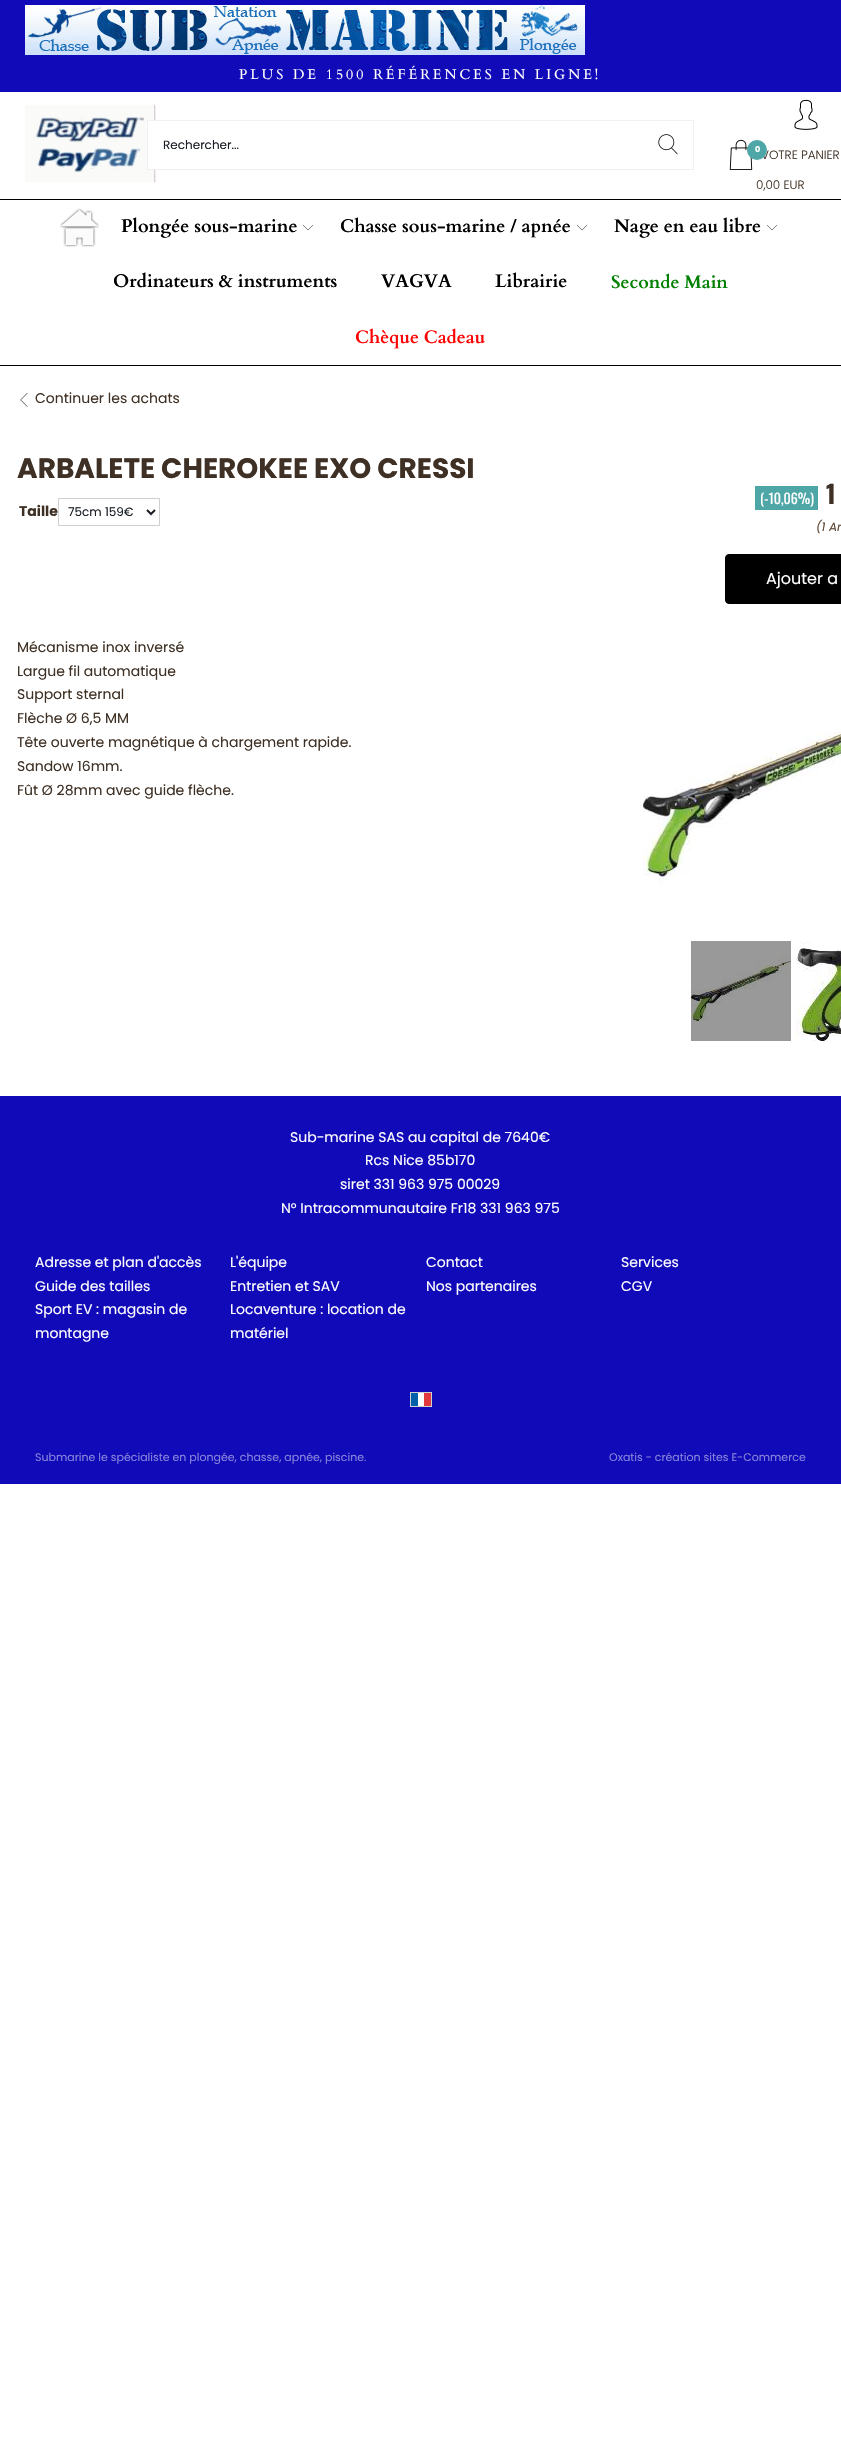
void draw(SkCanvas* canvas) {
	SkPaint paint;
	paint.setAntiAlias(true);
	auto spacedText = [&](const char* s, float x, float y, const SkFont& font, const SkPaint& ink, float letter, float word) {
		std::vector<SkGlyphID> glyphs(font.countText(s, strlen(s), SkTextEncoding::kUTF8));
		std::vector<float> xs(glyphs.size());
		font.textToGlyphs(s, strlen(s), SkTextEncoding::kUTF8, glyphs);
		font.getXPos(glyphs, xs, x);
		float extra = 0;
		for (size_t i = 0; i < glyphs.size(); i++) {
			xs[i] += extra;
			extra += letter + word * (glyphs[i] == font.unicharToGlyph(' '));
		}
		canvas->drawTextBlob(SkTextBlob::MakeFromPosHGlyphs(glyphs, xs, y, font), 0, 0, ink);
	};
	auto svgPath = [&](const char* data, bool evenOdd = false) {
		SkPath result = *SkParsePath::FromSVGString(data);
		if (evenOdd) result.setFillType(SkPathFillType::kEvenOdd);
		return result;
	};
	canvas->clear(0xffffffff);
	paint.setColor(0xff110ab8);
	canvas->drawRect(SkRect::MakeXYWH(0, 0, 841, 92), paint);
	canvas->drawImageRect(SkImages::DeferredFromEncodedData(SkData::MakeFromFileName("img1.png")), SkRect::MakeXYWH(25, 5, 560, 50), SkSamplingOptions());
	SkFont f1(fontMgr->matchFamilyStyle("Cardo", SkFontStyle::Normal()), 14);
	f1.setSubpixel(true);
	paint.setColor(0xffffffff);
	spacedText("PLUS DE 1500 RÉFÉRENCES EN LIGNE!", 239, 79, f1, paint, 3, 0);
	canvas->drawImageRect(SkImages::DeferredFromEncodedData(SkData::MakeFromFileName("img2.png")), SkRect::MakeXYWH(25, 104, 131, 78), SkSamplingOptions());
	canvas->drawRect(SkRect::MakeXYWH(148, 121, 8, 48), paint);
	paint.setColor(0xfff1f1f1);
	canvas->drawRect(SkRect::MakeXYWH(147, 120, 547, 1), paint);
	canvas->drawRect(SkRect::MakeXYWH(147, 169, 496, 1), paint);
	canvas->drawRect(SkRect::MakeXYWH(147, 120, 1, 50), paint);
	SkFont f2(fontMgr->matchFamilyStyle("Poppins", SkFontStyle::Normal()), 12);
	f2.setSubpixel(true);
	paint.setColor(0xff1a1f26);
	canvas->drawString("Rechercher...", 163, 149, f2, paint);
	paint.setColor(0xfff1f1f1);
	canvas->drawRect(SkRect::MakeXYWH(693, 120, 1, 50), paint);
	canvas->drawRect(SkRect::MakeXYWH(643, 169, 51, 1), paint);
	canvas->drawImageRect(SkImages::DeferredFromEncodedData(SkData::MakeFromFileName("img3.png")), SkRect::MakeXYWH(658, 134, 20, 21), SkSamplingOptions());
	canvas->drawImageRect(SkImages::DeferredFromEncodedData(SkData::MakeFromFileName("img4.png")), SkRect::MakeXYWH(794, 99, 24, 31), SkSamplingOptions());
	canvas->drawImageRect(SkImages::DeferredFromEncodedData(SkData::MakeFromFileName("img5.png")), SkRect::MakeXYWH(729, 139, 24, 31), SkSamplingOptions());
	SkFont f3(fontMgr->matchFamilyStyle("Poppins", SkFontStyle(300, SkFontStyle::kNormal_Width, SkFontStyle::kUpright_Slant)), 12);
	f3.setSubpixel(true);
	paint.setColor(0xff3e3024);
	canvas->drawString("VOTRE PANIER", 761, 159, f3, paint);
	paint.setColor(0xff4ea6a6);
	canvas->drawCircle(757, 150, 10, paint);
	SkFont f4(fontMgr->matchFamilyStyle("Poppins", SkFontStyle::Bold()), 8);
	f4.setSubpixel(true);
	paint.setColor(0xffffffff);
	canvas->drawString("0", 755, 152, f4, paint);
	paint.setColor(0xff3e3024);
	canvas->drawString("0,00 EUR", 756, 189, f3, paint);
	paint.setColor(0xff000000);
	canvas->drawRect(SkRect::MakeXYWH(0, 199, 841, 1), paint);
	canvas->drawRect(SkRect::MakeXYWH(0, 365, 841, 1), paint);
	canvas->drawImageRect(SkImages::DeferredFromEncodedData(SkData::MakeFromFileName("img6.png")), SkRect::MakeXYWH(60, 208, 39, 39), SkSamplingOptions());
	SkFont f5(fontMgr->matchFamilyStyle("Cardo", SkFontStyle::Bold()), 18.25);
	f5.setSubpixel(true);
	canvas->drawString("Plongée sous-marine", 121, 232, f5, paint);
	canvas->drawImageRect(SkImages::DeferredFromEncodedData(SkData::MakeFromFileName("img7.png")), SkRect::MakeXYWH(303, 225, 10, 6), SkSamplingOptions());
	canvas->drawString("Chasse sous-marine / apnée", 340, 232, f5, paint);
	canvas->drawImageRect(SkImages::DeferredFromEncodedData(SkData::MakeFromFileName("img7.png")), SkRect::MakeXYWH(577, 225, 10, 6), SkSamplingOptions());
	canvas->drawString("Nage en eau libre", 614, 232, f5, paint);
	canvas->drawImageRect(SkImages::DeferredFromEncodedData(SkData::MakeFromFileName("img7.png")), SkRect::MakeXYWH(767, 225, 10, 6), SkSamplingOptions());
	canvas->drawString("Ordinateurs & instruments", 113, 287, f5, paint);
	canvas->drawString("VAGVA", 381, 287, f5, paint);
	canvas->drawString("Librairie", 495, 287, f5, paint);
	SkFont f6(fontMgr->matchFamilyStyle("Cardo", SkFontStyle::Bold()), 18);
	f6.setSubpixel(true);
	paint.setColor(0xff008000);
	canvas->drawString("Seconde Main", 611, 288, f6, paint);
	paint.setColor(0xffff0000);
	canvas->drawString("Chèque Cadeau", 355, 343, f6, paint);
	canvas->drawImageRect(SkImages::DeferredFromEncodedData(SkData::MakeFromFileName("img8.png")), SkRect::MakeXYWH(20, 392, 8, 15), SkSamplingOptions());
	SkFont f7(fontMgr->matchFamilyStyle("Poppins", SkFontStyle::Normal()), 14);
	f7.setSubpixel(true);
	paint.setColor(0xff3e3024);
	canvas->drawString("Continuer les achats", 35, 403, f7, paint);
	SkFont f8(fontMgr->matchFamilyStyle("Poppins", SkFontStyle::Bold()), 28);
	f8.setSubpixel(true);
	canvas->drawString("ARBALETE CHEROKEE EXO CRESSI", 17, 478, f8, paint);
	SkFont f9(fontMgr->matchFamilyStyle("Poppins", SkFontStyle::Bold()), 14);
	f9.setSubpixel(true);
	canvas->drawString("Taille", 19, 516, f9, paint);
	paint.setStroke(true);
	paint.setStrokeWidth(1);
	paint.setColor(0xffd0d0d0);
	canvas->drawRect(SkRect::MakeXYWH(58.5, 498.5, 101, 27), paint);
	paint.setStrokeWidth(2);
	paint.setColor(0xff1a1f26);
	canvas->drawPath(svgPath("M147 510L151 514L155 510"), paint);
	paint.setStroke(false);
	canvas->drawString("75cm 159€", 68, 516, f2, paint);
	paint.setColor(0xff4ea6a6);
	canvas->drawRect(SkRect::MakeXYWH(755, 486, 63, 24), paint);
	SkFont f10(fontMgr->matchFamilyStyle("Oswald", SkFontStyle::Normal()), 14);
	f10.setSubpixel(true);
	paint.setColor(0xffffffff);
	canvas->drawString("(-10,06%)", 760, 504, f10, paint);
	SkFont f11(fontMgr->matchFamilyStyle("Oswald", SkFontStyle::Bold()), 25);
	f11.setSubpixel(true);
	paint.setColor(0xff3e3024);
	canvas->drawString("1", 826, 504, f11, paint);
	SkFont f12(fontMgr->matchFamilyStyle("Poppins", SkFontStyle::Italic()), 12);
	f12.setSubpixel(true);
	paint.setColor(0xff5e4937);
	canvas->drawString("(1 Ar", 816, 531, f12, paint);
	paint.setColor(0xff000000);
	canvas->drawRoundRect(SkRect::MakeXYWH(725.5, 554.5, 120, 49), 3.5, 3.5, paint);
	paint.setStroke(true);
	paint.setStrokeWidth(1);
	canvas->drawRoundRect(SkRect::MakeXYWH(725.5, 554.5, 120, 49), 3.5, 3.5, paint);
	SkFont f13(fontMgr->matchFamilyStyle("Poppins", SkFontStyle::Normal()), 16);
	f13.setSubpixel(true);
	paint.setStroke(false);
	paint.setColor(0xffffffff);
	canvas->drawString("Ajouter a", 766, 584, f13, paint);
	paint.setColor(0xff3e3024);
	canvas->drawString("Mécanisme inox inversé", 17, 652, f7, paint);
	canvas->drawString("Largue fil automatique", 17, 676, f7, paint);
	canvas->drawString("Support sternal", 17, 699, f7, paint);
	canvas->drawString("Flèche Ø 6,5 MM", 17, 723, f7, paint);
	canvas->drawString("Tête ouverte magnétique à chargement rapide.", 17, 747, f7, paint);
	canvas->drawImageRect(SkImages::DeferredFromEncodedData(SkData::MakeFromFileName("img9.png")), SkRect::MakeXYWH(643, 732, 198, 152), SkSamplingOptions());
	canvas->drawImageRect(SkImages::DeferredFromEncodedData(SkData::MakeFromFileName("img10.png")), SkRect::MakeXYWH(691, 941, 100, 100), SkSamplingOptions());
	canvas->drawImageRect(SkImages::DeferredFromEncodedData(SkData::MakeFromFileName("img11.png")), SkRect::MakeXYWH(796, 941, 45, 100), SkSamplingOptions());
	canvas->drawString("Sandow 16mm.", 17, 771, f7, paint);
	canvas->drawString("Fût Ø 28mm avec guide flèche.", 17, 795, f7, paint);
	paint.setColor(0xff110ab8);
	canvas->drawRect(SkRect::MakeXYWH(0, 1096, 841, 388), paint);
	paint.setColor(0xffffffff);
	canvas->drawString("Sub-marine SAS au capital de 7640€", 290, 1142, f7, paint);
	canvas->drawString("Rcs Nice 85b170", 365, 1165, f7, paint);
	canvas->drawString("siret 331 963 975 00029", 340, 1189, f7, paint);
	canvas->drawString("N° Intracommunautaire Fr18 331 963 975", 281, 1213, f7, paint);
	canvas->drawString("Adresse et plan d'accès", 35, 1267, f7, paint);
	canvas->drawString("L'équipe", 230, 1267, f7, paint);
	canvas->drawString("Contact", 426, 1267, f7, paint);
	canvas->drawString("Services", 621, 1267, f7, paint);
	canvas->drawString("Guide des tailles", 35, 1291, f7, paint);
	canvas->drawString("Entretien et SAV", 230, 1291, f7, paint);
	canvas->drawString("Nos partenaires", 426, 1291, f7, paint);
	canvas->drawString("CGV", 621, 1291, f7, paint);
	canvas->drawString("Sport EV : magasin de", 35, 1314, f7, paint);
	canvas->drawString("montagne", 35, 1338, f7, paint);
	canvas->drawString("Locaventure : location de", 230, 1314, f7, paint);
	canvas->drawString("matériel", 230, 1338, f7, paint);
	canvas->drawImageRect(SkImages::DeferredFromEncodedData(SkData::MakeFromFileName("img12.png")), SkRect::MakeXYWH(411, 1393, 20, 13), SkSamplingOptions());
	paint.setStroke(true);
	paint.setColor(0xffd0d0d0);
	canvas->drawRect(SkRect::MakeXYWH(410.5, 1392.5, 21, 14), paint);
	SkFont f14(fontMgr->matchFamilyStyle("Poppins", SkFontStyle::Normal()), 11);
	f14.setSubpixel(true);
	paint.setStroke(false);
	paint.setColor(0xff8885dc);
	canvas->drawString("Submarine le spécialiste en plongée, chasse, apnée, piscine.", 35, 1461, f14, paint);
	canvas->drawString("Oxatis - création sites E-Commerce", 609, 1461, f14, paint);
}
